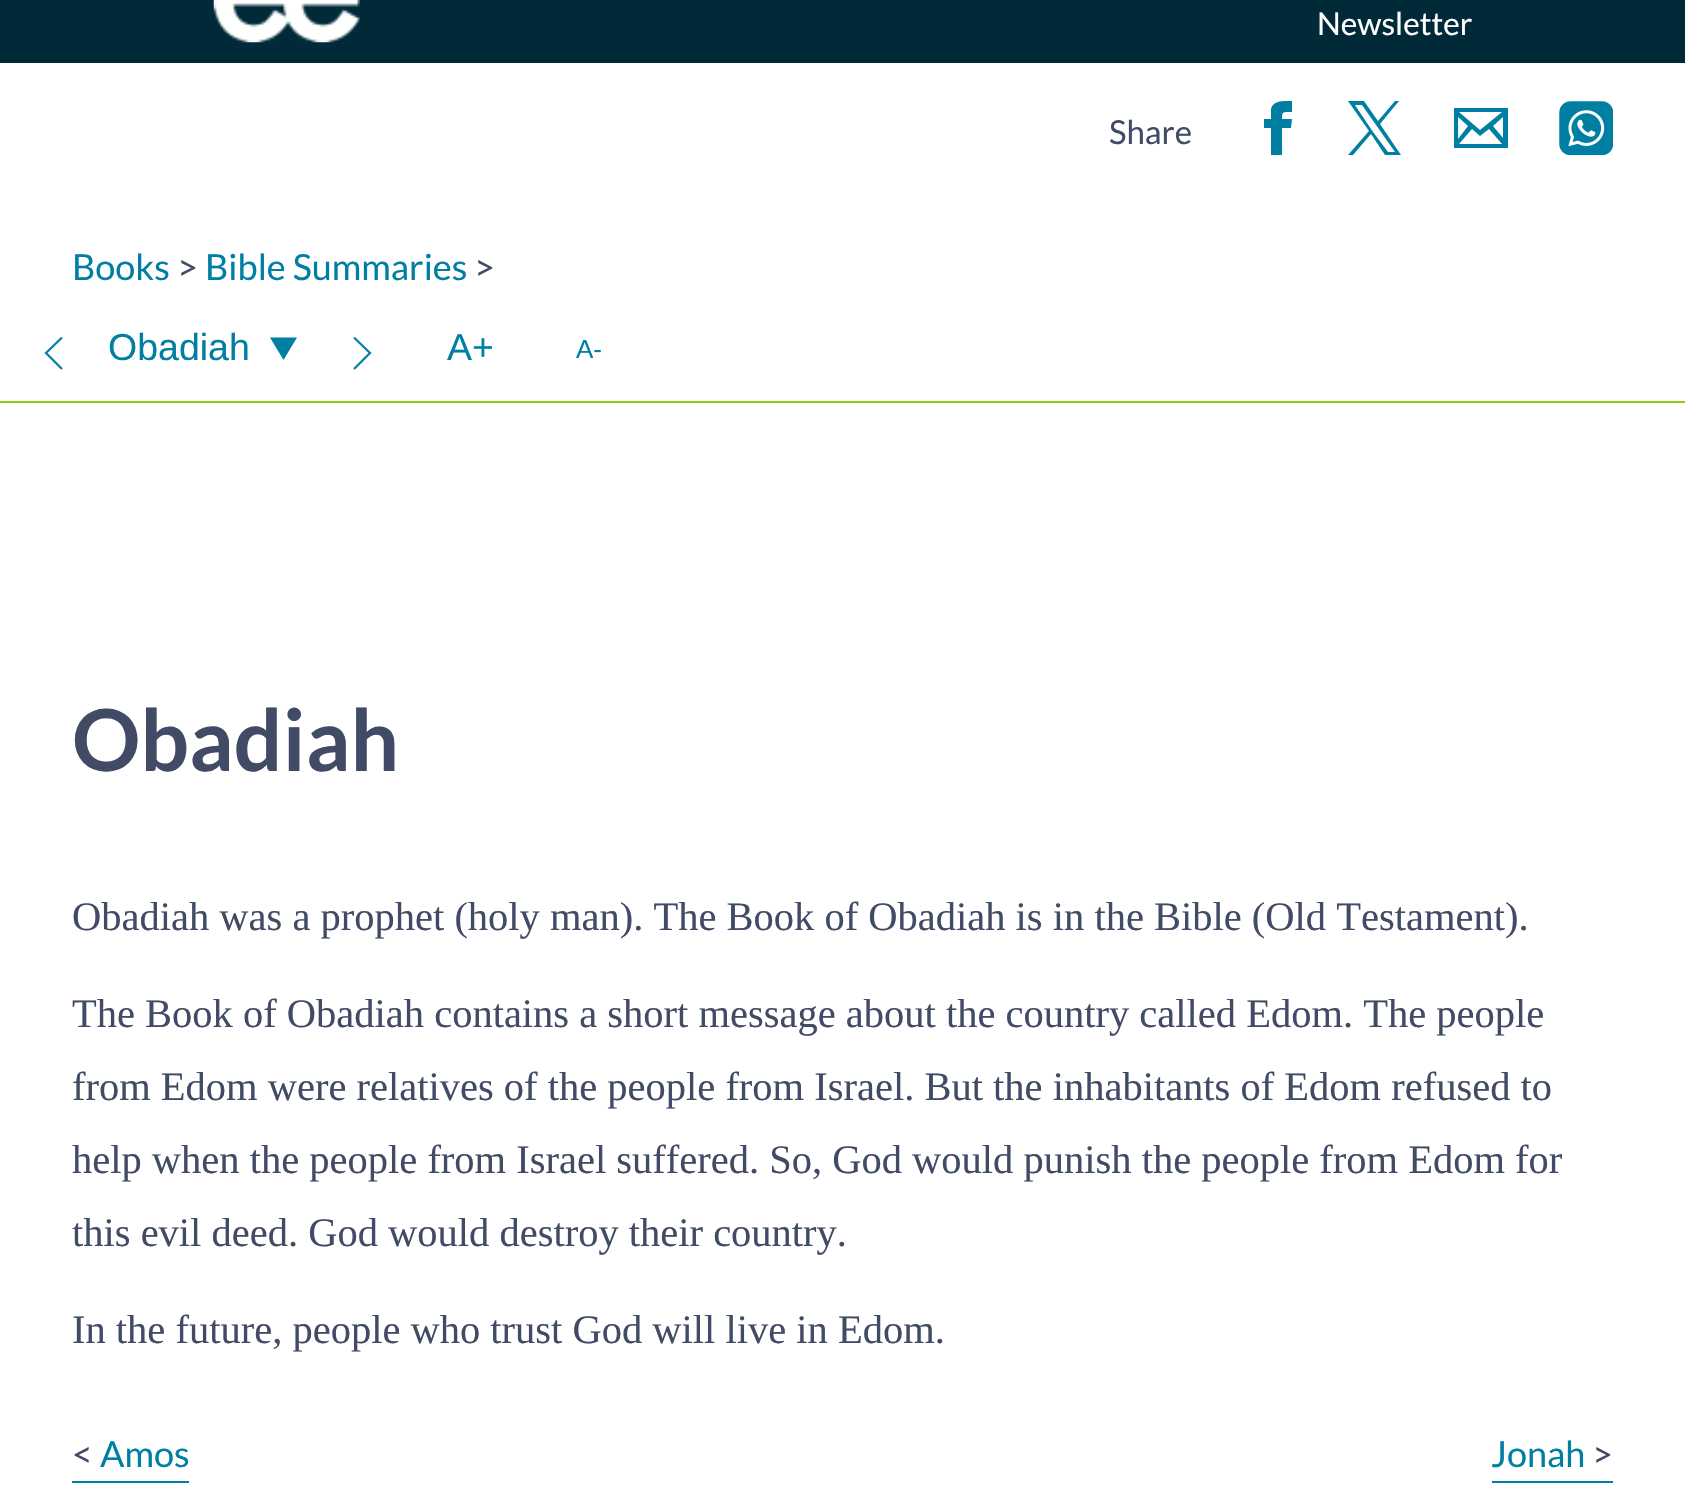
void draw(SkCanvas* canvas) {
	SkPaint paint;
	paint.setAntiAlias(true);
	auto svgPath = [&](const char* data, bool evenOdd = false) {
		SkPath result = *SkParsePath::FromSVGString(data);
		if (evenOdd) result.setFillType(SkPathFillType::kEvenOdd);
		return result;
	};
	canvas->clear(0xffffffff);
	paint.setColor(0xff002a38);
	canvas->drawRect(SkRect::MakeXYWH(0, 0, 1685, 63), paint);
	canvas->drawImageRect(SkImages::DeferredFromEncodedData(SkData::MakeFromFileName("img1.png")), SkRect::MakeXYWH(213, 0, 147, 43), SkSamplingOptions());
	SkFont f1(fontMgr->matchFamilyStyle("Lato", SkFontStyle::Normal()), 31.5);
	f1.setSubpixel(true);
	paint.setColor(0xffffffff);
	canvas->drawString("Newsletter", 1317, 35, f1, paint);
	SkFont f2(fontMgr->matchFamilyStyle("Lato", SkFontStyle::Normal()), 33);
	f2.setSubpixel(true);
	paint.setColor(0xff414b65);
	canvas->drawString("Share", 1109, 144, f2, paint);
	paint.setColor(0xff007fa3);
	canvas->drawPath(svgPath("M1271 119H1264V128H1271V155H1282V128H1291L1292 119H1282C1282 111 1283 112 1292 112V101C1284 101 1273 100 1271 109Z"), paint);
	canvas->drawPath(svgPath("M1380 124L1399 101H1395L1378 121L1364 101H1348L1369 131L1348 155H1353L1371 134L1385 155H1401ZM1373 132L1355 105H1362L1395 152H1388Z"), paint);
	canvas->drawPath(svgPath("M1454 108V148H1508V108ZM1468 126L1458 139V117ZM1459 112H1502L1480 130ZM1472 129L1480 136L1489 129L1502 144H1459ZM1493 126L1503 117V138Z"), paint);
	canvas->drawImageRect(SkImages::DeferredFromEncodedData(SkData::MakeFromFileName("img2.png")), SkRect::MakeXYWH(1559, 101, 54, 54), SkSamplingOptions());
	SkFont f3(fontMgr->matchFamilyStyle("Lato", SkFontStyle::Normal()), 36);
	f3.setSubpixel(true);
	canvas->drawString("Books", 72, 280, f3, paint);
	paint.setColor(0xff414b65);
	canvas->drawString(">", 177, 280, f3, paint);
	paint.setColor(0xff007fa3);
	canvas->drawString("Bible Summaries", 205, 280, f3, paint);
	paint.setColor(0xff414b65);
	canvas->drawString(">", 474, 280, f3, paint);
	paint.setColor(0xff92c91b);
	canvas->drawRect(SkRect::MakeXYWH(0, 401, 1685, 2), paint);
	paint.setStroke(true);
	paint.setStrokeWidth(2.2);
	paint.setColor(0xff007fa3);
	canvas->drawPath(svgPath("M62 337.5L46 353L62 369"), paint);
	SkFont f4(fontMgr->matchFamilyStyle("Liberation Sans", SkFontStyle::Normal()), 37.5);
	f4.setSubpixel(true);
	paint.setStroke(false);
	canvas->drawString("Obadiah", 108, 360, f4, paint);
	canvas->drawPath(svgPath("M270 337.5H297L283.5 360Z"), paint);
	paint.setStroke(true);
	canvas->drawPath(svgPath("M354 337.5L370 353L354 369"), paint);
	paint.setStroke(false);
	canvas->drawString("A+", 447, 360, f4, paint);
	SkFont f5(fontMgr->matchFamilyStyle("Liberation Sans", SkFontStyle::Normal()), 26);
	f5.setSubpixel(true);
	canvas->drawString("A-", 576, 358, f5, paint);
	SkFont f6(fontMgr->matchFamilyStyle("Lato", SkFontStyle::Bold()), 85.5);
	f6.setSubpixel(true);
	paint.setColor(0xff414b65);
	canvas->drawString("Obadiah", 72, 771, f6, paint);
	SkFont f7(fontMgr->matchFamilyStyle("Liberation Serif", SkFontStyle::Normal()), 40.5);
	f7.setSubpixel(true);
	canvas->drawString("Obadiah was a prophet (holy man). The Book of Obadiah is in the Bible (Old Testament).", 72, 930, f7, paint);
	canvas->drawString("The Book of Obadiah contains a short message about the country called Edom. The people", 72, 1027, f7, paint);
	canvas->drawString("from Edom were relatives of the people from Israel. But the inhabitants of Edom refused to", 72, 1100, f7, paint);
	canvas->drawString("help when the people from Israel suffered. So, God would punish the people from Edom for", 72, 1173, f7, paint);
	canvas->drawString("this evil deed. God would destroy their country.", 72, 1246, f7, paint);
	canvas->drawString("In the future, people who trust God will live in Edom.", 72, 1343, f7, paint);
	paint.setColor(0xff007fa3);
	canvas->drawRect(SkRect::MakeXYWH(72, 1481, 117, 2), paint);
	paint.setColor(0xff414b65);
	canvas->drawString("<", 72, 1467, f3, paint);
	paint.setColor(0xff007fa3);
	canvas->drawString("Amos", 100, 1467, f3, paint);
	canvas->drawRect(SkRect::MakeXYWH(1492, 1481, 121, 2), paint);
	canvas->drawString("Jonah", 1491, 1467, f3, paint);
	paint.setColor(0xff414b65);
	canvas->drawString(">", 1592, 1467, f3, paint);
}
